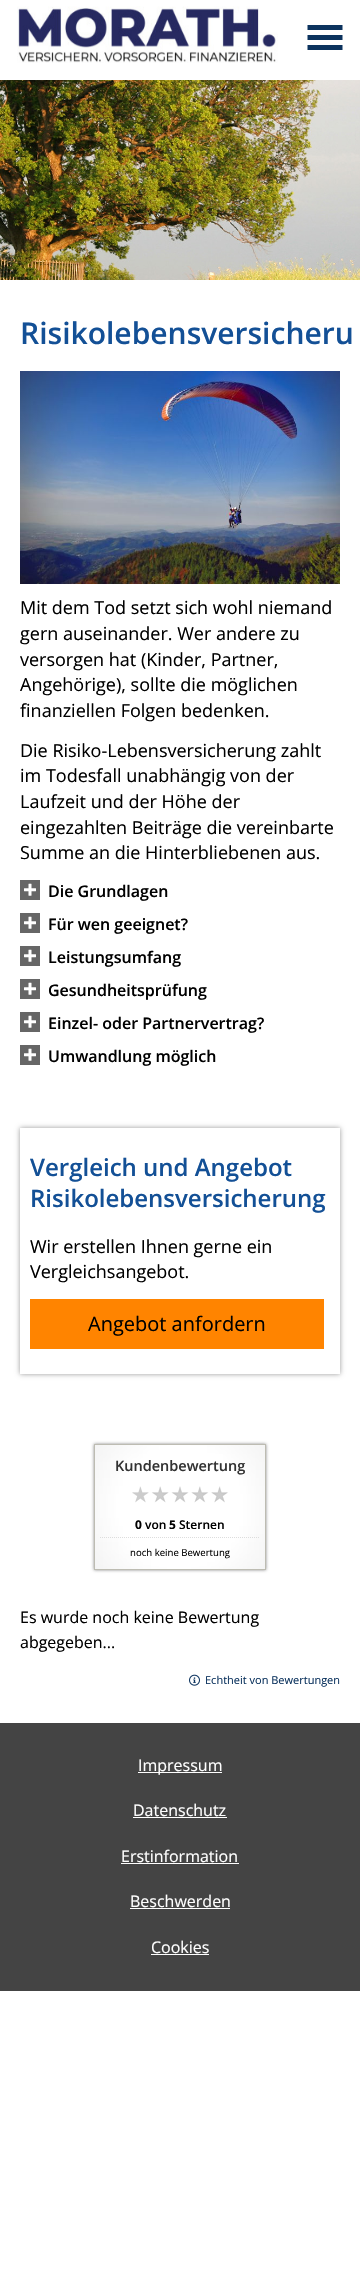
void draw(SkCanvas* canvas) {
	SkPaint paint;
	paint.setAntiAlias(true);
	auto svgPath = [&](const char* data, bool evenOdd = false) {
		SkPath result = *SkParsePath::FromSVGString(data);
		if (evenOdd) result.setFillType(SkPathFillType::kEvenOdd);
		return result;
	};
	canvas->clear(0xffffffff);
	canvas->drawImageRect(SkImages::DeferredFromEncodedData(SkData::MakeFromFileName("img1.png")), SkRect::MakeXYWH(0, 80, 360, 200), SkSamplingOptions());
	canvas->drawImageRect(SkImages::DeferredFromEncodedData(SkData::MakeFromFileName("img2.png")), SkRect::MakeXYWH(17, 6, 261, 57), SkSamplingOptions());
	paint.setColor(0xff0c335e);
	canvas->drawPath(svgPath("M307.5 25H342.5V30H307.5ZM307.5 35H342.5V40H307.5ZM307.5 45H342.5V50H307.5Z"), paint);
	SkFont f1(fontMgr->matchFamilyStyle("Open Sans", SkFontStyle(600, SkFontStyle::kNormal_Width, SkFontStyle::kUpright_Slant)), 30);
	f1.setSubpixel(true);
	paint.setColor(0xff135096);
	canvas->drawString("Risikolebensversicheru", 20, 344, f1, paint);
	canvas->drawImageRect(SkImages::DeferredFromEncodedData(SkData::MakeFromFileName("img3.png")), SkRect::MakeXYWH(20, 371, 320, 213), SkSamplingOptions());
	SkFont f2(fontMgr->matchFamilyStyle("Open Sans", SkFontStyle::Normal()), 18);
	f2.setSubpixel(true);
	paint.setColor(0xff000000);
	canvas->drawString("Mit dem Tod setzt sich wohl niemand", 20, 614, f2, paint);
	canvas->drawString("gern auseinander. Wer andere zu", 20, 640, f2, paint);
	canvas->drawString("versorgen hat (Kinder, Partner,", 20, 666, f2, paint);
	canvas->drawString("Angehörige), sollte die möglichen", 20, 691, f2, paint);
	canvas->drawString("finanziellen Folgen bedenken.", 20, 717, f2, paint);
	canvas->drawString("Die Risiko-Lebensversicherung zahlt", 20, 757, f2, paint);
	canvas->drawString("im Todesfall unabhängig von der", 20, 782, f2, paint);
	canvas->drawString("Laufzeit und der Höhe der", 20, 808, f2, paint);
	canvas->drawString("eingezahlten Beiträge die vereinbarte", 20, 834, f2, paint);
	canvas->drawString("Summe an die Hinterbliebenen aus.", 20, 859, f2, paint);
	paint.setColor(0xff666666);
	canvas->drawRect(SkRect::MakeXYWH(20, 880, 20, 20), paint);
	canvas->drawImageRect(SkImages::DeferredFromEncodedData(SkData::MakeFromFileName("img4.png")), SkRect::MakeXYWH(24, 883, 12, 13), SkSamplingOptions());
	SkFont f3(fontMgr->matchFamilyStyle("Open Sans", SkFontStyle(600, SkFontStyle::kNormal_Width, SkFontStyle::kUpright_Slant)), 16);
	f3.setSubpixel(true);
	paint.setColor(0xff000000);
	canvas->drawString("Die Grundlagen", 48, 897, f3, paint);
	paint.setColor(0xff666666);
	canvas->drawRect(SkRect::MakeXYWH(20, 913, 20, 20), paint);
	canvas->drawImageRect(SkImages::DeferredFromEncodedData(SkData::MakeFromFileName("img4.png")), SkRect::MakeXYWH(24, 916, 12, 13), SkSamplingOptions());
	paint.setColor(0xff000000);
	canvas->drawString("Für wen geeignet?", 48, 930, f3, paint);
	paint.setColor(0xff666666);
	canvas->drawRect(SkRect::MakeXYWH(20, 946, 20, 20), paint);
	canvas->drawImageRect(SkImages::DeferredFromEncodedData(SkData::MakeFromFileName("img4.png")), SkRect::MakeXYWH(24, 949, 12, 13), SkSamplingOptions());
	paint.setColor(0xff000000);
	canvas->drawString("Leistungsumfang", 48, 963, f3, paint);
	paint.setColor(0xff666666);
	canvas->drawRect(SkRect::MakeXYWH(20, 979, 20, 20), paint);
	canvas->drawImageRect(SkImages::DeferredFromEncodedData(SkData::MakeFromFileName("img4.png")), SkRect::MakeXYWH(24, 982, 12, 13), SkSamplingOptions());
	paint.setColor(0xff000000);
	canvas->drawString("Gesundheitsprüfung", 48, 996, f3, paint);
	paint.setColor(0xff666666);
	canvas->drawRect(SkRect::MakeXYWH(20, 1012, 20, 20), paint);
	canvas->drawImageRect(SkImages::DeferredFromEncodedData(SkData::MakeFromFileName("img4.png")), SkRect::MakeXYWH(24, 1015, 12, 13), SkSamplingOptions());
	paint.setColor(0xff000000);
	canvas->drawString("Einzel- oder Partnervertrag?", 48, 1029, f3, paint);
	paint.setColor(0xff666666);
	canvas->drawRect(SkRect::MakeXYWH(20, 1045, 20, 20), paint);
	canvas->drawImageRect(SkImages::DeferredFromEncodedData(SkData::MakeFromFileName("img4.png")), SkRect::MakeXYWH(24, 1048, 12, 13), SkSamplingOptions());
	paint.setColor(0xff000000);
	canvas->drawString("Umwandlung möglich", 48, 1062, f3, paint);
	canvas->save();
	canvas->clipPath(svgPath("M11 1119H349V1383H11ZM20 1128H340V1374H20Z", true), true);
	paint.setColor(0xff999999);
	paint.setMaskFilter(SkMaskFilter::MakeBlur(kNormal_SkBlurStyle, 2.5));
	canvas->drawRect(SkRect::MakeXYWH(20, 1128, 320, 246), paint);
	paint.setMaskFilter(nullptr);
	canvas->restore();
	SkFont f4(fontMgr->matchFamilyStyle("Open Sans", SkFontStyle(600, SkFontStyle::kNormal_Width, SkFontStyle::kUpright_Slant)), 24);
	f4.setSubpixel(true);
	paint.setColor(0xff135096);
	canvas->drawString("Vergleich und Angebot", 30, 1176, f4, paint);
	canvas->drawString("Risikolebensversicherung", 30, 1207, f4, paint);
	paint.setColor(0xff000000);
	canvas->drawString("Wir erstellen Ihnen gerne ein", 30, 1253, f2, paint);
	canvas->drawString("Vergleichsangebot.", 30, 1278, f2, paint);
	paint.setColor(0xffff8400);
	canvas->drawRect(SkRect::MakeXYWH(30, 1299, 294, 50), paint);
	SkFont f5(fontMgr->matchFamilyStyle("Open Sans", SkFontStyle::Normal()), 20);
	f5.setSubpixel(true);
	paint.setColor(0xff000000);
	canvas->drawString("Angebot anfordern", 88, 1331, f5, paint);
	paint.setColor(0xff888888);
	paint.setMaskFilter(SkMaskFilter::MakeBlur(kNormal_SkBlurStyle, 1.5));
	canvas->drawRect(SkRect::MakeXYWH(94, 1444, 172, 126), paint);
	paint.setMaskFilter(nullptr);
	canvas->drawImageRect(SkImages::DeferredFromEncodedData(SkData::MakeFromFileName("img5.png")), SkRect::MakeXYWH(95, 1445, 170, 124), SkSamplingOptions());
	paint.setStroke(true);
	paint.setStrokeWidth(1);
	paint.setColor(0xffbdbcb2);
	canvas->drawRect(SkRect::MakeXYWH(94.5, 1444.5, 171, 125), paint);
	SkFont f6(fontMgr->matchFamilyStyle("Open Sans", SkFontStyle(600, SkFontStyle::kNormal_Width, SkFontStyle::kUpright_Slant)), 14.5);
	f6.setSubpixel(true);
	paint.setStroke(false);
	paint.setColor(0xff333333);
	canvas->drawString("Kundenbewertung", 115, 1471, f6, paint);
	canvas->drawImageRect(SkImages::DeferredFromEncodedData(SkData::MakeFromFileName("img6.png")), SkRect::MakeXYWH(130, 1484, 100, 20), SkSamplingOptions());
	SkFont f7(fontMgr->matchFamilyStyle("Open Sans", SkFontStyle::Bold()), 12);
	f7.setSubpixel(true);
	paint.setColor(0xff000000);
	canvas->drawString("0", 135, 1529, f7, paint);
	SkFont f8(fontMgr->matchFamilyStyle("Open Sans", SkFontStyle(600, SkFontStyle::kNormal_Width, SkFontStyle::kUpright_Slant)), 12);
	f8.setSubpixel(true);
	canvas->drawString("von", 145, 1529, f8, paint);
	canvas->drawString("5", 169, 1529, f7, paint);
	canvas->drawString("Sternen", 179, 1529, f8, paint);
	paint.setStroke(true);
	paint.setColor(0xffdddddd);
	paint.setPathEffect(SkDashPathEffect::Make({{1, 1}}, 0));
	canvas->drawPath(svgPath("M100 1537.5H260"), paint);
	paint.setPathEffect(nullptr);
	SkFont f9(fontMgr->matchFamilyStyle("Open Sans", SkFontStyle::Normal()), 9.6);
	f9.setSubpixel(true);
	paint.setStroke(false);
	paint.setColor(0xff000000);
	canvas->drawString("noch keine Bewertung", 130, 1556, f9, paint);
	SkFont f10(fontMgr->matchFamilyStyle("Open Sans", SkFontStyle::Normal()), 16);
	f10.setSubpixel(true);
	canvas->drawString("Es wurde noch keine Bewertung", 20, 1623, f10, paint);
	canvas->drawString("abgegeben...", 20, 1648, f10, paint);
	canvas->drawImageRect(SkImages::DeferredFromEncodedData(SkData::MakeFromFileName("img7.png")), SkRect::MakeXYWH(189, 1674, 11, 12), SkSamplingOptions());
	SkFont f11(fontMgr->matchFamilyStyle("Open Sans", SkFontStyle::Normal()), 11);
	f11.setSubpixel(true);
	paint.setColor(0xff0c335e);
	canvas->drawString("Echtheit von Bewertungen", 205, 1684, f11, paint);
	paint.setColor(0xff444444);
	canvas->drawRect(SkRect::MakeXYWH(0, 1723, 360, 268), paint);
	paint.setColor(0xffffffff);
	canvas->drawRect(SkRect::MakeXYWH(138, 1772, 84, 1), paint);
	canvas->drawString("Impressum", 138, 1771, f10, paint);
	canvas->drawString("Datenschutz", 133, 1816, f10, paint);
	canvas->drawRect(SkRect::MakeXYWH(133, 1817, 94, 1), paint);
	canvas->drawString("Erstinformation", 121, 1862, f10, paint);
	canvas->drawRect(SkRect::MakeXYWH(121, 1863, 118, 1), paint);
	canvas->drawString("Beschwerden", 130, 1907, f10, paint);
	canvas->drawRect(SkRect::MakeXYWH(130, 1908, 100, 1), paint);
	canvas->drawString("Cookies", 151, 1953, f10, paint);
	canvas->drawRect(SkRect::MakeXYWH(151, 1954, 58, 1), paint);
}
